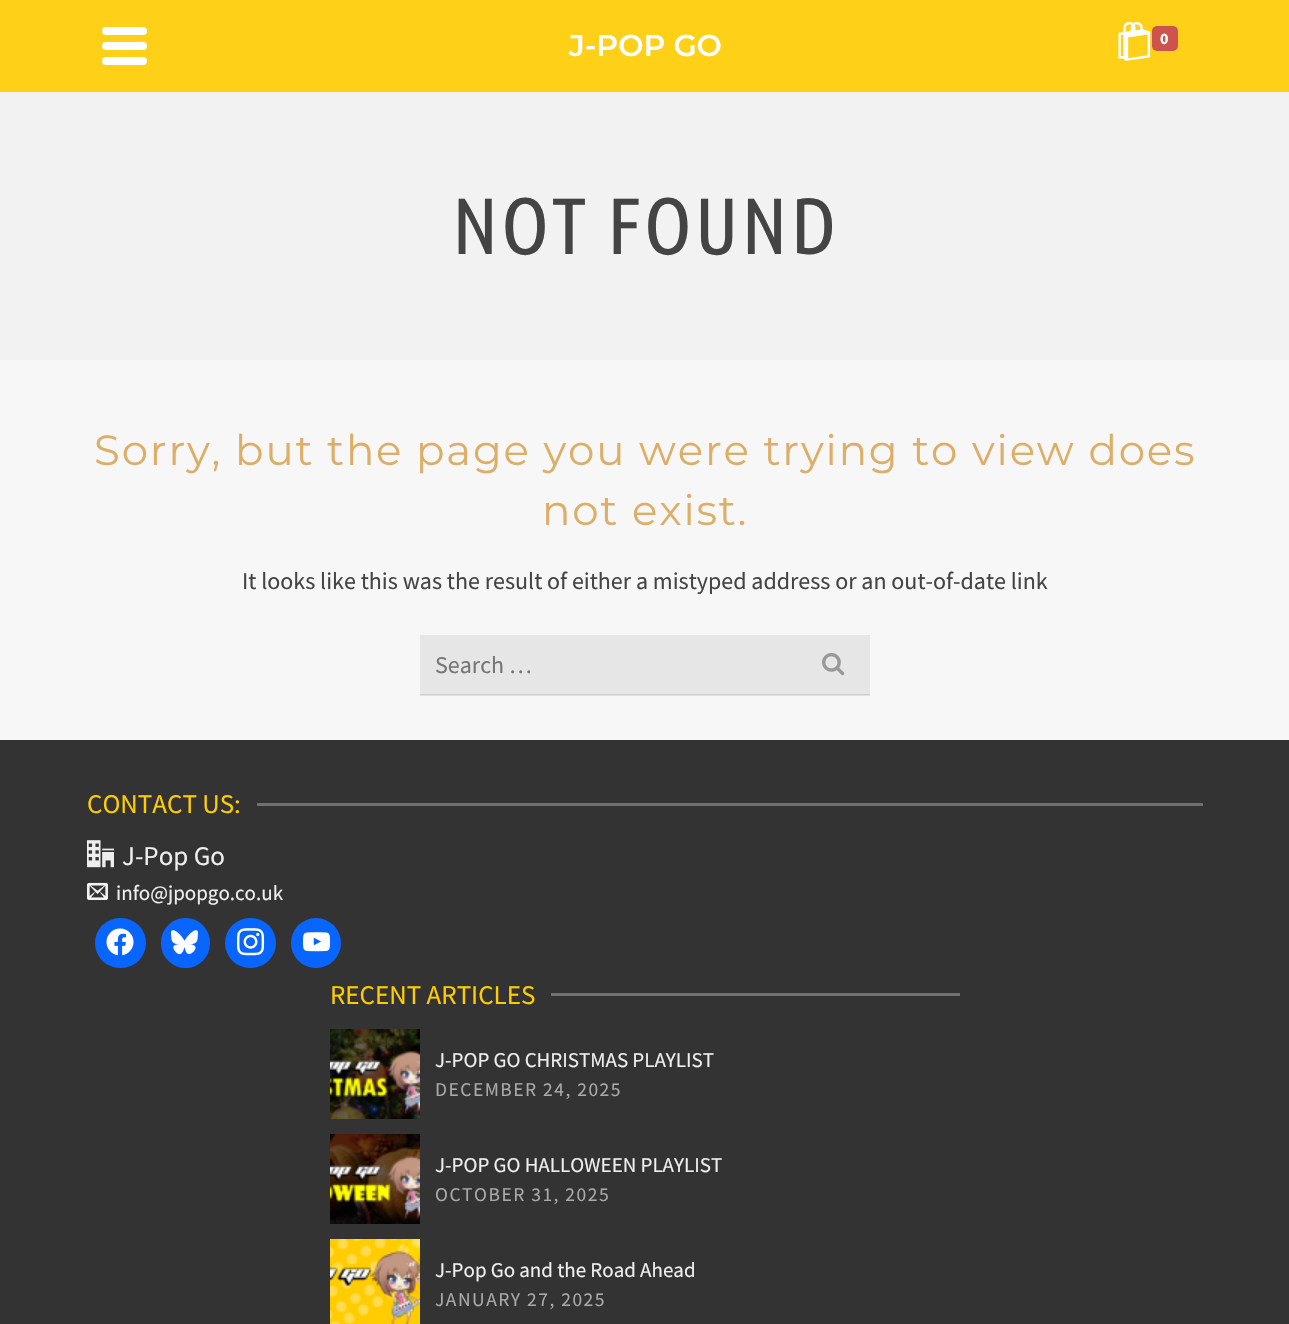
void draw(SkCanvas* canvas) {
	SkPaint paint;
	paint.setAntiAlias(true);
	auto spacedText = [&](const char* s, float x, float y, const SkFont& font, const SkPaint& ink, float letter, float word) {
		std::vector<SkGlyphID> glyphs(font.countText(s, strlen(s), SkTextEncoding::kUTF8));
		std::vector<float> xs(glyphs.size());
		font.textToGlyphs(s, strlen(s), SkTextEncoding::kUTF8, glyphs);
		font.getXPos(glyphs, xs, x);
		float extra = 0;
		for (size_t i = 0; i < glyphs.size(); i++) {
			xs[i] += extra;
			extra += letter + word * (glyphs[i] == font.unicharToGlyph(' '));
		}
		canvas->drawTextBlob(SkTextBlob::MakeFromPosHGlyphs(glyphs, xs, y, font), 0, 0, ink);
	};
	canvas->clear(0xfff7f7f7);
	paint.setColor(0xfffed018);
	canvas->drawRect(SkRect::MakeXYWH(0, 0, 1289, 92), paint);
	paint.setColor(0xffffffff);
	canvas->drawRoundRect(SkRect::MakeXYWH(102, 27, 45, 8), 4, 4, paint);
	canvas->drawRoundRect(SkRect::MakeXYWH(102, 42, 45, 8), 4, 4, paint);
	canvas->drawRoundRect(SkRect::MakeXYWH(102, 57, 45, 8), 4, 4, paint);
	SkFont f1(fontMgr->matchFamilyStyle("Montserrat", SkFontStyle(600, SkFontStyle::kNormal_Width, SkFontStyle::kUpright_Slant)), 30);
	f1.setSubpixel(true);
	canvas->drawString("J-POP GO", 569, 56, f1, paint);
	canvas->drawImageRect(SkImages::DeferredFromEncodedData(SkData::MakeFromFileName("img1.png")), SkRect::MakeXYWH(1118, 21, 33, 40), SkSamplingOptions());
	paint.setColor(0xffce534d);
	canvas->drawRoundRect(SkRect::MakeXYWH(1152, 26, 26, 25), 5, 5, paint);
	SkFont f2(fontMgr->matchFamilyStyle("Source Sans Pro", SkFontStyle::Bold()), 16);
	f2.setSubpixel(true);
	paint.setColor(0xffffffff);
	canvas->drawString("0", 1160, 44, f2, paint);
	paint.setColor(0xffe6e6e6);
	canvas->drawRect(SkRect::MakeXYWH(420, 635, 450, 59), paint);
	paint.setColor(0xfff2f2f2);
	canvas->drawRect(SkRect::MakeXYWH(0, 92, 1289, 268), paint);
	SkFont f3(fontMgr->matchFamilyStyle("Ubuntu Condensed", SkFontStyle::Normal()), 79.75);
	f3.setSubpixel(true);
	paint.setColor(0xff444444);
	spacedText("NOT FOUND", 452, 254, f3, paint, 2.75, 0);
	SkFont f4(fontMgr->matchFamilyStyle("Montserrat", SkFontStyle::Normal()), 42);
	f4.setSubpixel(true);
	paint.setColor(0xffddae68);
	spacedText("Sorry, but the page you were trying to view does", 94, 465, f4, paint, 1.8, 0);
	spacedText("not exist.", 542, 525, f4, paint, 1.8, 0);
	SkFont f5(fontMgr->matchFamilyStyle("Source Sans Pro", SkFontStyle::Normal()), 24);
	f5.setSubpixel(true);
	paint.setColor(0xff444444);
	canvas->drawString("It looks like this was the result of either a mistyped address or an out-of-date link", 242, 589, f5, paint);
	paint.setColor(0xffdfdfdf);
	canvas->drawRect(SkRect::MakeXYWH(420, 695, 450, 1), paint);
	paint.setColor(0xffcfcfcf);
	canvas->drawRect(SkRect::MakeXYWH(420, 694, 450, 1), paint);
	paint.setColor(0xff757575);
	canvas->drawString("Search …", 435, 673, f5, paint);
	canvas->drawImageRect(SkImages::DeferredFromEncodedData(SkData::MakeFromFileName("img2.png")), SkRect::MakeXYWH(822, 652, 23, 24), SkSamplingOptions());
	paint.setColor(0xff333333);
	canvas->drawRect(SkRect::MakeXYWH(0, 740, 1289, 584), paint);
	SkFont f6(fontMgr->matchFamilyStyle("Source Sans Pro", SkFontStyle::Normal()), 27);
	f6.setSubpixel(true);
	paint.setColor(0xffffcc00);
	canvas->drawString("CONTACT US:", 87, 813, f6, paint);
	paint.setColor(0xff707070);
	canvas->drawRect(SkRect::MakeXYWH(257, 803, 946, 3), paint);
	canvas->drawImageRect(SkImages::DeferredFromEncodedData(SkData::MakeFromFileName("img3.png")), SkRect::MakeXYWH(87, 840, 27, 28), SkSamplingOptions());
	paint.setColor(0xffeeeeee);
	canvas->drawString("J-Pop Go", 122, 865, f6, paint);
	canvas->drawImageRect(SkImages::DeferredFromEncodedData(SkData::MakeFromFileName("img4.png")), SkRect::MakeXYWH(87, 882, 21, 18), SkSamplingOptions());
	SkFont f7(fontMgr->matchFamilyStyle("Source Sans Pro", SkFontStyle::Normal()), 21);
	f7.setSubpixel(true);
	canvas->drawString("info@jpopgo.co.uk", 116, 900, f7, paint);
	paint.setColor(0xff0866ff);
	canvas->drawRoundRect(SkRect::MakeXYWH(95, 918, 51, 50), 25, 25, paint);
	canvas->drawImageRect(SkImages::DeferredFromEncodedData(SkData::MakeFromFileName("img5.png")), SkRect::MakeXYWH(106, 928, 28, 28), SkSamplingOptions());
	canvas->drawRoundRect(SkRect::MakeXYWH(161, 918, 49, 50), 24.5, 24.5, paint);
	canvas->drawImageRect(SkImages::DeferredFromEncodedData(SkData::MakeFromFileName("img6.png")), SkRect::MakeXYWH(171, 930, 27, 25), SkSamplingOptions());
	canvas->drawRoundRect(SkRect::MakeXYWH(225, 918, 51, 50), 25, 25, paint);
	canvas->drawImageRect(SkImages::DeferredFromEncodedData(SkData::MakeFromFileName("img7.png")), SkRect::MakeXYWH(237, 928, 28, 28), SkSamplingOptions());
	canvas->drawCircle(316, 943, 25, paint);
	canvas->drawImageRect(SkImages::DeferredFromEncodedData(SkData::MakeFromFileName("img8.png")), SkRect::MakeXYWH(303, 932, 28, 20), SkSamplingOptions());
	paint.setColor(0xffffcc00);
	canvas->drawString("RECENT ARTICLES", 330, 1004, f6, paint);
	paint.setColor(0xff707070);
	canvas->drawRect(SkRect::MakeXYWH(551, 993, 409, 3), paint);
	canvas->drawImageRect(SkImages::DeferredFromEncodedData(SkData::MakeFromFileName("img9.png")), SkRect::MakeXYWH(330, 1029, 90, 90), SkSamplingOptions());
	paint.setColor(0xffeeeeee);
	canvas->drawString("J-POP GO CHRISTMAS PLAYLIST", 435, 1067, f7, paint);
	SkFont f8(fontMgr->matchFamilyStyle("Source Sans Pro", SkFontStyle::Normal()), 19.5);
	f8.setSubpixel(true);
	paint.setColor(0xffaaaaaa);
	spacedText("DECEMBER 24, 2025", 435, 1096, f8, paint, 1.5, 0);
	canvas->drawImageRect(SkImages::DeferredFromEncodedData(SkData::MakeFromFileName("img10.png")), SkRect::MakeXYWH(330, 1134, 90, 90), SkSamplingOptions());
	paint.setColor(0xffeeeeee);
	canvas->drawString("J-POP GO HALLOWEEN PLAYLIST", 435, 1172, f7, paint);
	paint.setColor(0xffaaaaaa);
	spacedText("OCTOBER 31, 2025", 435, 1201, f8, paint, 1.5, 0);
	canvas->drawImageRect(SkImages::DeferredFromEncodedData(SkData::MakeFromFileName("img11.png")), SkRect::MakeXYWH(330, 1239, 90, 85), SkSamplingOptions());
	paint.setColor(0xffeeeeee);
	canvas->drawString("J-Pop Go and the Road Ahead", 435, 1277, f7, paint);
	paint.setColor(0xffaaaaaa);
	spacedText("JANUARY 27, 2025", 435, 1306, f8, paint, 1.5, 0);
}
